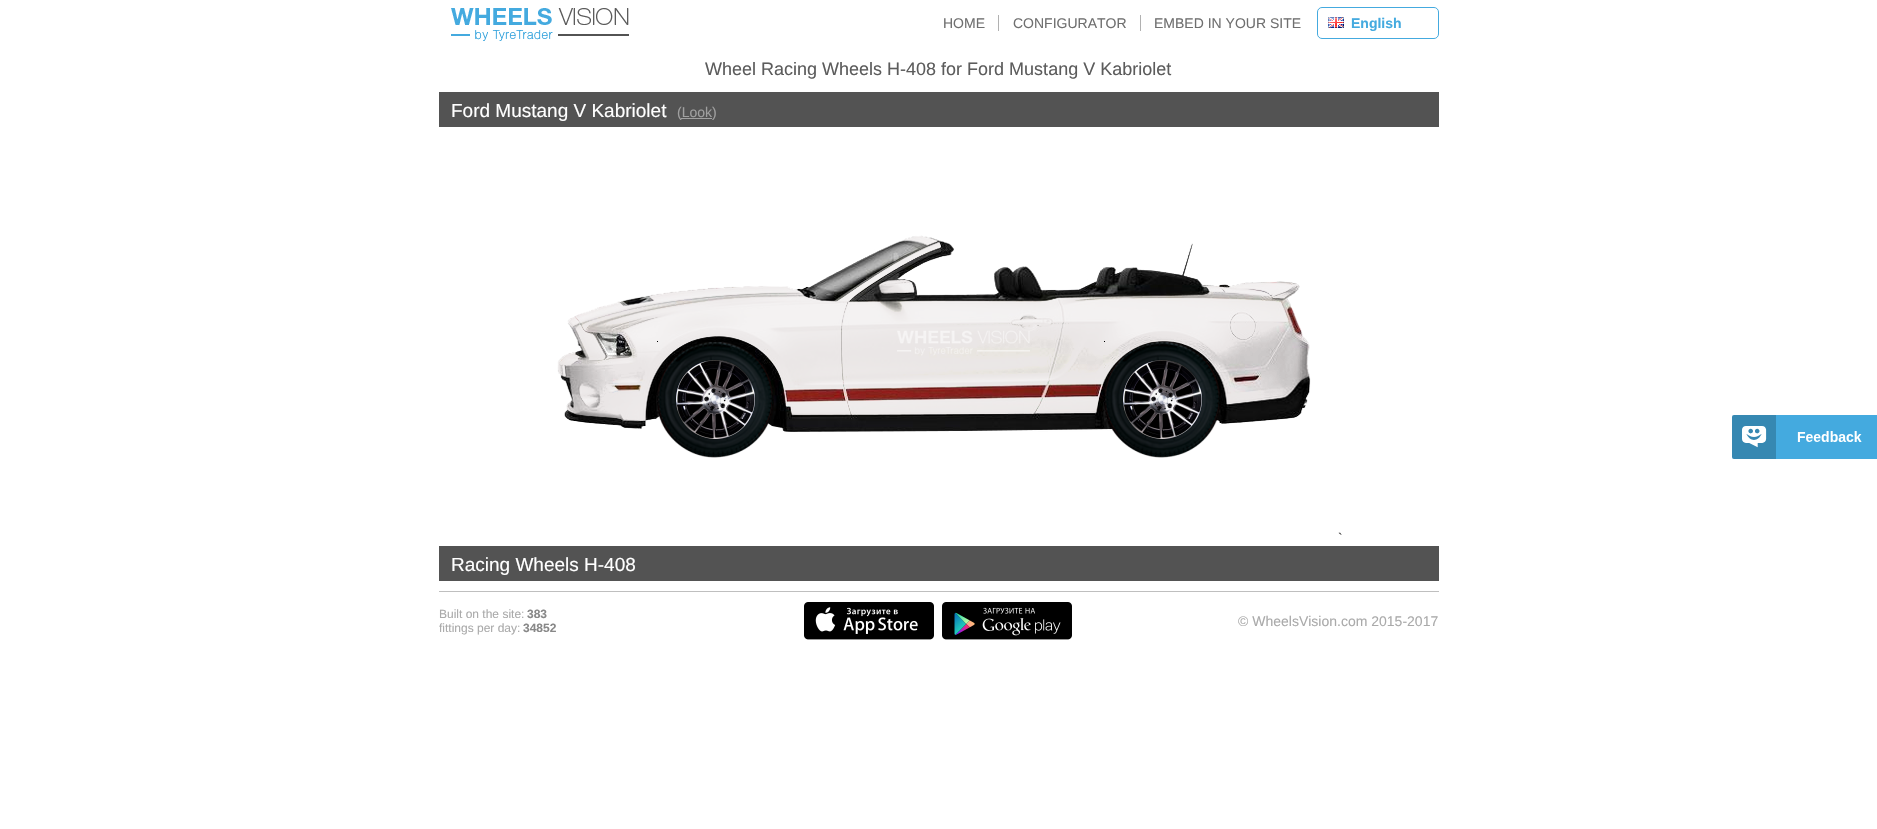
void draw(SkCanvas* canvas) {
	SkPaint paint;
	paint.setAntiAlias(true);
	canvas->clear(0xffffffff);
	canvas->drawImageRect(SkImages::DeferredFromEncodedData(SkData::MakeFromFileName("img1.png")), SkRect::MakeXYWH(451, 8, 178, 33), SkSamplingOptions());
	paint.setColor(0xffb1b1b1);
	canvas->drawRect(SkRect::MakeXYWH(998, 15, 1, 16), paint);
	SkFont f1(fontMgr->matchFamilyStyle("Liberation Sans", SkFontStyle::Normal()), 14);
	f1.setSubpixel(true);
	paint.setColor(0xff6f6f6f);
	canvas->drawString("HOME", 943, 28, f1, paint);
	paint.setColor(0xffb1b1b1);
	canvas->drawRect(SkRect::MakeXYWH(1140, 15, 1, 16), paint);
	paint.setColor(0xff6f6f6f);
	canvas->drawString("CONFIGURATOR", 1013, 28, f1, paint);
	canvas->drawString("EMBED IN YOUR SITE", 1154, 28, f1, paint);
	paint.setStroke(true);
	paint.setStrokeWidth(1);
	paint.setColor(0xff44aadf);
	canvas->drawRoundRect(SkRect::MakeXYWH(1317.5, 7.5, 121, 31), 4.5, 4.5, paint);
	canvas->drawImageRect(SkImages::DeferredFromEncodedData(SkData::MakeFromFileName("img2.png")), SkRect::MakeXYWH(1328, 17, 16, 11), SkSamplingOptions());
	SkFont f2(fontMgr->matchFamilyStyle("Liberation Sans", SkFontStyle::Bold()), 14);
	f2.setSubpixel(true);
	paint.setStroke(false);
	canvas->drawString("English", 1351, 28, f2, paint);
	SkFont f3(fontMgr->matchFamilyStyle("Liberation Sans", SkFontStyle::Normal()), 18);
	f3.setSubpixel(true);
	paint.setColor(0xff5c5c5c);
	canvas->drawString("Wheel Racing Wheels H-408 for Ford Mustang V Kabriolet", 705, 75, f3, paint);
	paint.setColor(0xff535353);
	canvas->drawRect(SkRect::MakeXYWH(439, 92, 1000, 35), paint);
	SkFont f4(fontMgr->matchFamilyStyle("Liberation Sans", SkFontStyle::Normal()), 19);
	f4.setSubpixel(true);
	paint.setColor(0xffffffff);
	canvas->drawString("Ford Mustang V Kabriolet", 451, 117, f4, paint);
	paint.setColor(0xffa0a0a0);
	canvas->drawString("(Look", 677, 117, f1, paint);
	canvas->drawRect(SkRect::MakeXYWH(681, 118, 31, 1), paint);
	canvas->drawString(")", 712, 117, f1, paint);
	canvas->drawImageRect(SkImages::DeferredFromEncodedData(SkData::MakeFromFileName("img3.png")), SkRect::MakeXYWH(557, 235, 754, 223), SkSamplingOptions());
	paint.setColor(0xff3e3e3e);
	canvas->drawString("`", 1338, 543, f1, paint);
	paint.setColor(0xff535353);
	canvas->drawRect(SkRect::MakeXYWH(439, 546, 1000, 35), paint);
	paint.setColor(0xffffffff);
	canvas->drawString("Racing Wheels H-408", 451, 571, f4, paint);
	canvas->drawImageRect(SkImages::DeferredFromEncodedData(SkData::MakeFromFileName("img4.png")), SkRect::MakeXYWH(1732, 415, 145, 44), SkSamplingOptions());
	paint.setColor(0xffbfbfbf);
	canvas->drawRect(SkRect::MakeXYWH(439, 591, 1000, 1), paint);
	SkFont f5(fontMgr->matchFamilyStyle("Liberation Sans", SkFontStyle::Normal()), 12);
	f5.setSubpixel(true);
	paint.setColor(0xffaaaaaa);
	canvas->drawString("Built on the site:", 439, 618, f5, paint);
	SkFont f6(fontMgr->matchFamilyStyle("Liberation Sans", SkFontStyle::Bold()), 12);
	f6.setSubpixel(true);
	paint.setColor(0xff888888);
	canvas->drawString("383", 527, 618, f6, paint);
	paint.setColor(0xffaaaaaa);
	canvas->drawString("fittings per day:", 439, 632, f5, paint);
	paint.setColor(0xff888888);
	canvas->drawString("34852", 523, 632, f6, paint);
	canvas->drawImageRect(SkImages::DeferredFromEncodedData(SkData::MakeFromFileName("img5.png")), SkRect::MakeXYWH(804, 602, 130, 38), SkSamplingOptions());
	canvas->drawImageRect(SkImages::DeferredFromEncodedData(SkData::MakeFromFileName("img6.png")), SkRect::MakeXYWH(942, 602, 130, 38), SkSamplingOptions());
	paint.setColor(0xffaaaaaa);
	canvas->drawString("© WheelsVision.com 2015-2017", 1238, 626, f1, paint);
}
